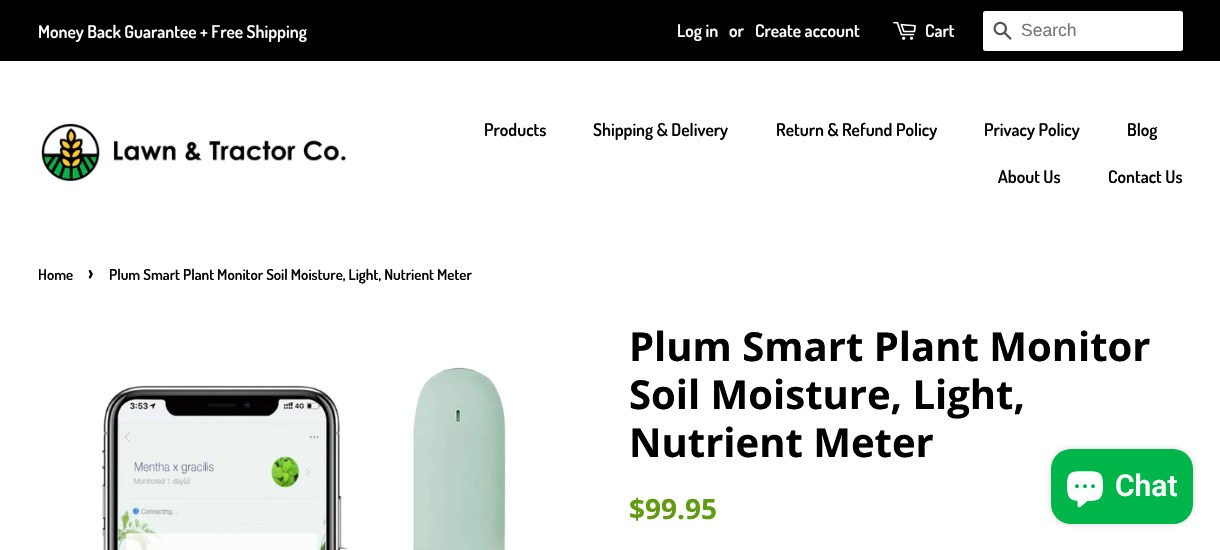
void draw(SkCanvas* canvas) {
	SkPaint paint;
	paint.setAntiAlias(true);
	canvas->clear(0xffffffff);
	paint.setColor(0xff000000);
	canvas->drawRect(SkRect::MakeXYWH(0, 0, 1220, 61), paint);
	SkFont f1(fontMgr->matchFamilyStyle("Dosis", SkFontStyle(600, SkFontStyle::kNormal_Width, SkFontStyle::kUpright_Slant)), 17.5);
	f1.setSubpixel(true);
	paint.setColor(0xffffffff);
	canvas->drawString("Money Back Guarantee + Free Shipping", 38, 38, f1, paint);
	canvas->drawString("Log in", 677, 37, f1, paint);
	canvas->drawString("or", 729, 37, f1, paint);
	canvas->drawString("Create account", 755, 37, f1, paint);
	canvas->drawImageRect(SkImages::DeferredFromEncodedData(SkData::MakeFromFileName("img1.png")), SkRect::MakeXYWH(893, 21, 23, 19), SkSamplingOptions());
	canvas->drawString("Cart", 925, 37, f1, paint);
	canvas->drawRoundRect(SkRect::MakeXYWH(983, 11, 200, 40), 2.5, 2.5, paint);
	canvas->drawImageRect(SkImages::DeferredFromEncodedData(SkData::MakeFromFileName("img2.png")), SkRect::MakeXYWH(993, 21, 19, 19), SkSamplingOptions());
	SkFont f2(fontMgr->matchFamilyStyle("Liberation Sans", SkFontStyle::Normal()), 17.5);
	f2.setSubpixel(true);
	paint.setColor(0xff757575);
	canvas->drawString("Search", 1021, 36, f2, paint);
	canvas->drawImageRect(SkImages::DeferredFromEncodedData(SkData::MakeFromFileName("img3.png")), SkRect::MakeXYWH(41, 123, 305, 58), SkSamplingOptions());
	paint.setColor(0xff000000);
	canvas->drawString("Products", 484, 136, f1, paint);
	canvas->drawString("Shipping & Delivery", 593, 136, f1, paint);
	canvas->drawString("Return & Refund Policy", 776, 136, f1, paint);
	canvas->drawString("Privacy Policy", 984, 136, f1, paint);
	canvas->drawString("Blog", 1127, 136, f1, paint);
	canvas->drawString("About Us", 998, 183, f1, paint);
	canvas->drawString("Contact Us", 1108, 183, f1, paint);
	SkFont f3(fontMgr->matchFamilyStyle("Dosis", SkFontStyle(600, SkFontStyle::kNormal_Width, SkFontStyle::kUpright_Slant)), 15);
	f3.setSubpixel(true);
	canvas->drawString("Home", 38, 280, f3, paint);
	SkFont f4(fontMgr->matchFamilyStyle("Dosis", SkFontStyle(600, SkFontStyle::kNormal_Width, SkFontStyle::kUpright_Slant)), 21);
	f4.setSubpixel(true);
	canvas->drawString("›", 88, 280, f4, paint);
	canvas->drawString("Plum Smart Plant Monitor Soil Moisture, Light, Nutrient Meter", 109, 280, f3, paint);
	canvas->drawImageRect(SkImages::DeferredFromEncodedData(SkData::MakeFromFileName("img4.png")), SkRect::MakeXYWH(100, 367, 408, 183), SkSamplingOptions());
	SkFont f5(fontMgr->matchFamilyStyle("Open Sans", SkFontStyle::Bold()), 40);
	f5.setSubpixel(true);
	canvas->drawString("Plum Smart Plant Monitor", 629, 361, f5, paint);
	canvas->drawString("Soil Moisture, Light,", 629, 409, f5, paint);
	canvas->drawString("Nutrient Meter", 629, 457, f5, paint);
	SkFont f6(fontMgr->matchFamilyStyle("Open Sans", SkFontStyle::Bold()), 28);
	f6.setSubpixel(true);
	paint.setColor(0xff619b10);
	canvas->drawString("$99.95", 629, 519, f6, paint);
	paint.setColor(0x26000000);
	paint.setMaskFilter(SkMaskFilter::MakeBlur(kNormal_SkBlurStyle, 3));
	canvas->drawRoundRect(SkRect::MakeXYWH(1051, 449, 142, 75), 20, 20, paint);
	paint.setMaskFilter(nullptr);
	paint.setColor(0xff00b64b);
	canvas->drawRoundRect(SkRect::MakeXYWH(1051, 449, 142, 75), 20, 20, paint);
	canvas->drawImageRect(SkImages::DeferredFromEncodedData(SkData::MakeFromFileName("img5.png")), SkRect::MakeXYWH(1067, 471, 36, 37), SkSamplingOptions());
	SkFont f7(fontMgr->matchFamilyStyle("Roboto", SkFontStyle(600, SkFontStyle::kNormal_Width, SkFontStyle::kUpright_Slant)), 30);
	f7.setSubpixel(true);
	paint.setColor(0xffffffff);
	canvas->drawString("Chat", 1115, 496, f7, paint);
}
